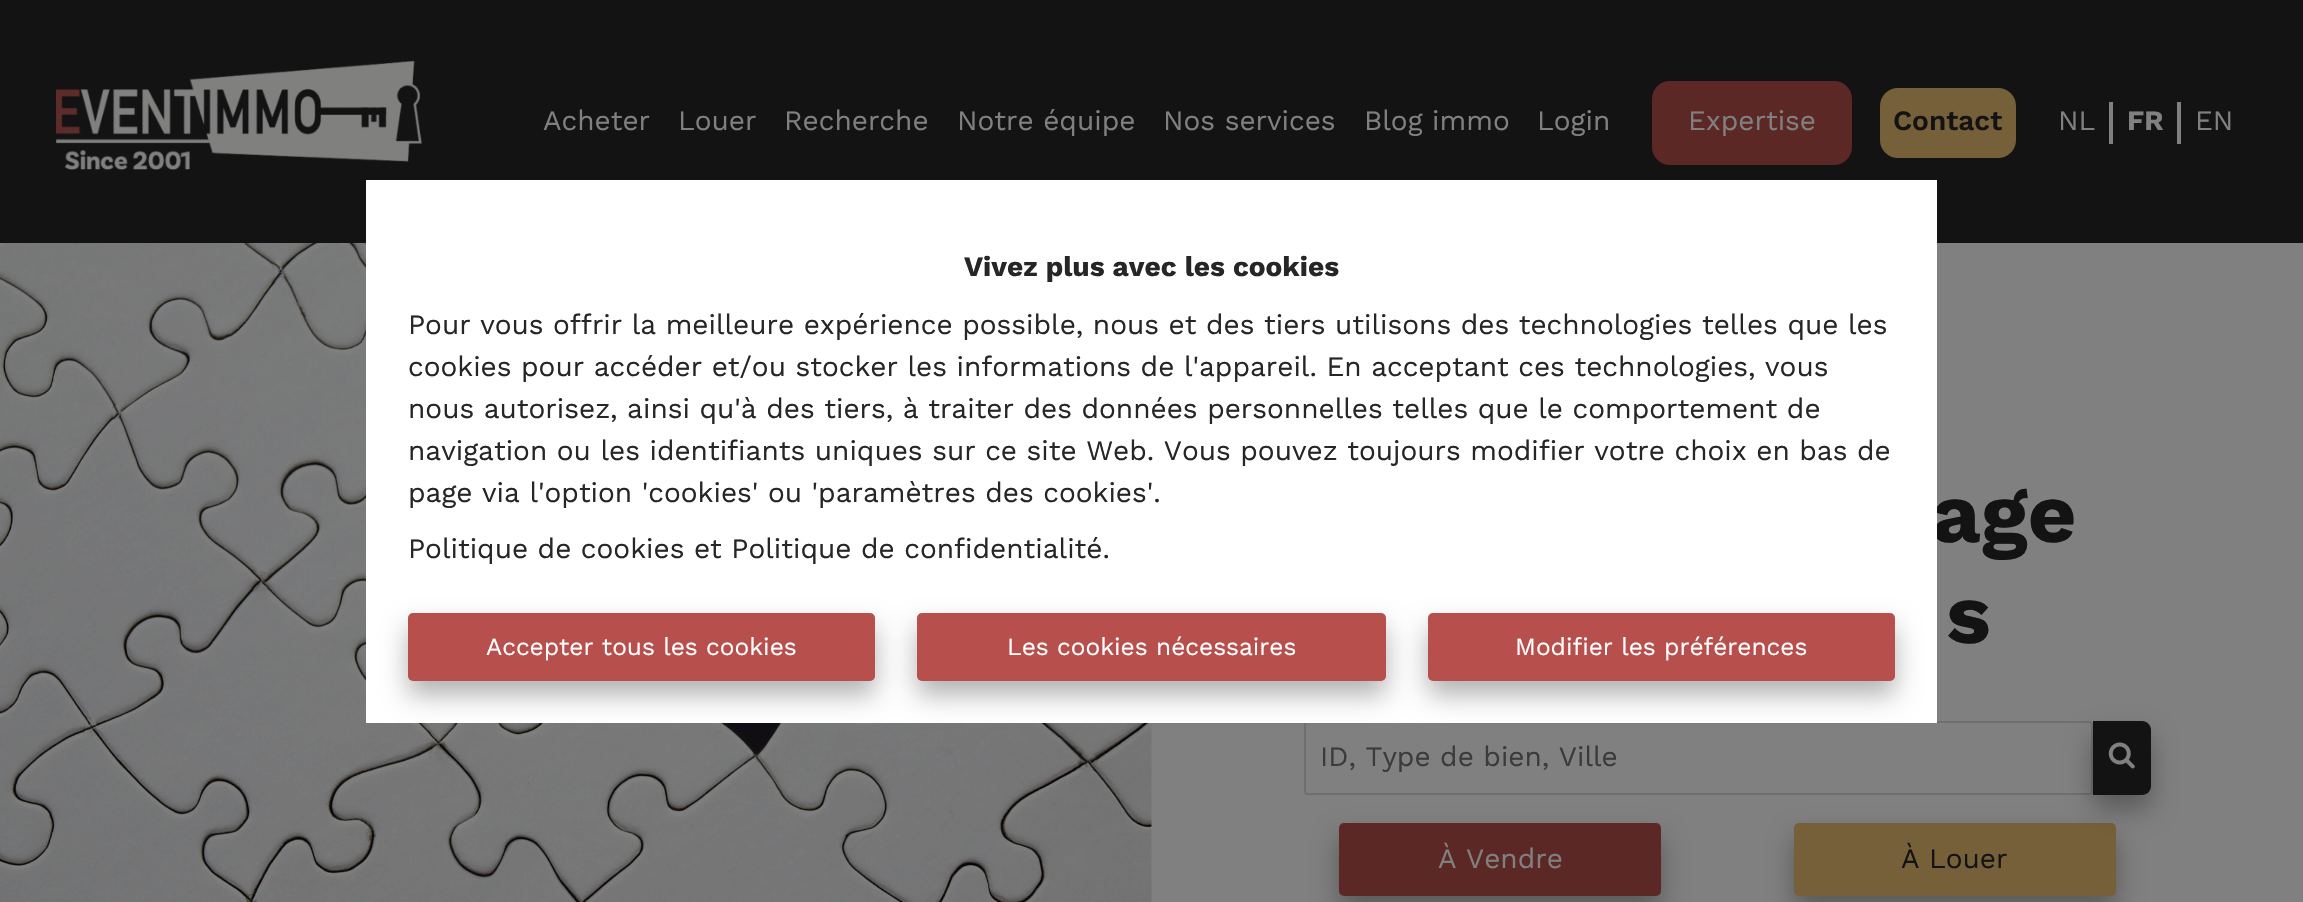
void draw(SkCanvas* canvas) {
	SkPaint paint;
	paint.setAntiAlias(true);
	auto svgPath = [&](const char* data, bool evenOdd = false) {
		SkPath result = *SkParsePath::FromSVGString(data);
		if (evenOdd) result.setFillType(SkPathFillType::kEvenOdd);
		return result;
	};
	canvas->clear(0xff808080);
	paint.setColor(0xff131313);
	canvas->drawRect(SkRect::MakeXYWH(0, 0, 2303, 243), paint);
	canvas->drawImageRect(SkImages::DeferredFromEncodedData(SkData::MakeFromFileName("img1.png")), SkRect::MakeXYWH(56, 61, 366, 109), SkSamplingOptions());
	SkFont f1(fontMgr->matchFamilyStyle("Work Sans", SkFontStyle::Normal()), 28);
	f1.setSubpixel(true);
	paint.setColor(0xff808080);
	canvas->drawString("Acheter", 543, 130, f1, paint);
	canvas->drawString("Louer", 678, 130, f1, paint);
	canvas->drawString("Recherche", 784, 130, f1, paint);
	canvas->drawString("Notre équipe", 957, 130, f1, paint);
	canvas->drawString("Nos services", 1163, 130, f1, paint);
	canvas->drawString("Blog immo", 1364, 130, f1, paint);
	canvas->drawString("Login", 1537, 130, f1, paint);
	paint.setColor(0xff5c2826);
	canvas->drawRoundRect(SkRect::MakeXYWH(1652, 81, 200, 84), 18, 18, paint);
	paint.setColor(0xff808080);
	canvas->drawString("Expertise", 1688, 130, f1, paint);
	paint.setColor(0xff766039);
	canvas->drawRoundRect(SkRect::MakeXYWH(1880, 88, 136, 70), 18, 18, paint);
	SkFont f2(fontMgr->matchFamilyStyle("Work Sans", SkFontStyle(600, SkFontStyle::kNormal_Width, SkFontStyle::kUpright_Slant)), 28);
	f2.setSubpixel(true);
	paint.setColor(0xff131313);
	canvas->drawString("Contact", 1893, 130, f2, paint);
	paint.setColor(0xff808080);
	canvas->drawRect(SkRect::MakeXYWH(2109, 102, 4, 42), paint);
	canvas->drawString("NL", 2058, 130, f1, paint);
	canvas->drawRect(SkRect::MakeXYWH(2177, 102, 4, 42), paint);
	SkFont f3(fontMgr->matchFamilyStyle("Work Sans", SkFontStyle::Bold()), 28);
	f3.setSubpixel(true);
	canvas->drawString("FR", 2127, 130, f3, paint);
	canvas->drawString("EN", 2195, 130, f1, paint);
	canvas->drawImageRect(SkImages::DeferredFromEncodedData(SkData::MakeFromFileName("img2.png")), SkRect::MakeXYWH(0, 243, 1152, 659), SkSamplingOptions());
	SkFont f4(fontMgr->matchFamilyStyle("Work Sans", SkFontStyle::Bold()), 84);
	f4.setSubpixel(true);
	paint.setColor(0xff131313);
	canvas->drawString("age", 1932, 542, f4, paint);
	paint.setStroke(true);
	paint.setStrokeWidth(2);
	paint.setColor(0xff6f6f6f);
	canvas->drawRoundRect(SkRect::MakeXYWH(1305, 722, 787, 72), 3, 3, paint);
	paint.setStroke(false);
	paint.setColor(0xffffffff);
	canvas->drawRect(SkRect::MakeXYWH(366, 180, 1571, 543), paint);
	paint.setColor(0xff262626);
	canvas->drawString("Vivez plus avec les cookies", 964, 276, f3, paint);
	canvas->drawString("Pour vous offrir la meilleure expérience possible, nous et des tiers utilisons des technologies telles que les", 408, 334, f1, paint);
	canvas->drawString("cookies pour accéder et/ou stocker les informations de l'appareil. En acceptant ces technologies, vous", 408, 376, f1, paint);
	canvas->drawString("nous autorisez, ainsi qu'à des tiers, à traiter des données personnelles telles que le comportement de", 408, 418, f1, paint);
	canvas->drawString("navigation ou les identifiants uniques sur ce site Web. Vous pouvez toujours modifier votre choix en bas de", 408, 460, f1, paint);
	canvas->drawString("page via l'option 'cookies' ou 'paramètres des cookies'.", 408, 502, f1, paint);
	canvas->drawString("Politique de cookies et Politique de confidentialité.", 408, 558, f1, paint);
	paint.setColor(0x4d000000);
	paint.setMaskFilter(SkMaskFilter::MakeBlur(kNormal_SkBlurStyle, 13));
	canvas->drawRoundRect(SkRect::MakeXYWH(408, 627, 467, 68), 5, 5, paint);
	paint.setMaskFilter(nullptr);
	paint.setColor(0xffb74f4c);
	canvas->drawRoundRect(SkRect::MakeXYWH(408, 613, 467, 68), 5, 5, paint);
	SkFont f5(fontMgr->matchFamilyStyle("Work Sans", SkFontStyle::Normal()), 24.5);
	f5.setSubpixel(true);
	paint.setColor(0xffffffff);
	canvas->drawString("Accepter tous les cookies", 486, 655, f5, paint);
	paint.setColor(0x4d000000);
	paint.setMaskFilter(SkMaskFilter::MakeBlur(kNormal_SkBlurStyle, 13));
	canvas->drawRoundRect(SkRect::MakeXYWH(917, 627, 469, 68), 5, 5, paint);
	paint.setMaskFilter(nullptr);
	paint.setColor(0xffb74f4c);
	canvas->drawRoundRect(SkRect::MakeXYWH(917, 613, 469, 68), 5, 5, paint);
	paint.setColor(0xffffffff);
	canvas->drawString("Les cookies nécessaires", 1007, 655, f5, paint);
	paint.setColor(0x4d000000);
	paint.setMaskFilter(SkMaskFilter::MakeBlur(kNormal_SkBlurStyle, 13));
	canvas->drawRoundRect(SkRect::MakeXYWH(1428, 627, 467, 68), 5, 5, paint);
	paint.setMaskFilter(nullptr);
	paint.setColor(0xffb74f4c);
	canvas->drawRoundRect(SkRect::MakeXYWH(1428, 613, 467, 68), 5, 5, paint);
	paint.setColor(0xffffffff);
	canvas->drawString("Modifier les préférences", 1515, 655, f5, paint);
	paint.setColor(0xff131313);
	canvas->drawString("s", 1946, 643, f4, paint);
	paint.setColor(0xff3b3b3b);
	canvas->drawString("ID, Type de bien, Ville", 1320, 766, f1, paint);
	paint.setColor(0x4d000000);
	paint.setMaskFilter(SkMaskFilter::MakeBlur(kNormal_SkBlurStyle, 13));
	canvas->drawRoundRect(SkRect::MakeXYWH(1794, 837, 322, 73), 5, 5, paint);
	paint.setMaskFilter(nullptr);
	paint.setColor(0xff766039);
	canvas->drawRoundRect(SkRect::MakeXYWH(1794, 823, 322, 73), 5, 5, paint);
	paint.setColor(0x4d000000);
	paint.setMaskFilter(SkMaskFilter::MakeBlur(kNormal_SkBlurStyle, 13));
	canvas->drawRoundRect(SkRect::MakeXYWH(2093, 735, 58, 74), 9, 9, paint);
	paint.setMaskFilter(nullptr);
	paint.setColor(0xff131313);
	canvas->drawPath(svgPath("M2093 721H2142C2147 721 2151 725 2151 730V786C2151 791 2147 795 2142 795H2093Z"), paint);
	canvas->drawImageRect(SkImages::DeferredFromEncodedData(SkData::MakeFromFileName("img3.png")), SkRect::MakeXYWH(2108, 742, 27, 27), SkSamplingOptions());
	paint.setColor(0x4d000000);
	paint.setMaskFilter(SkMaskFilter::MakeBlur(kNormal_SkBlurStyle, 13));
	canvas->drawRoundRect(SkRect::MakeXYWH(1339, 837, 322, 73), 5, 5, paint);
	paint.setMaskFilter(nullptr);
	paint.setColor(0xff5c2826);
	canvas->drawRoundRect(SkRect::MakeXYWH(1339, 823, 322, 73), 5, 5, paint);
	paint.setColor(0xff808080);
	canvas->drawString("À Vendre", 1438, 868, f1, paint);
	paint.setColor(0xff131313);
	canvas->drawString("À Louer", 1901, 868, f1, paint);
}
